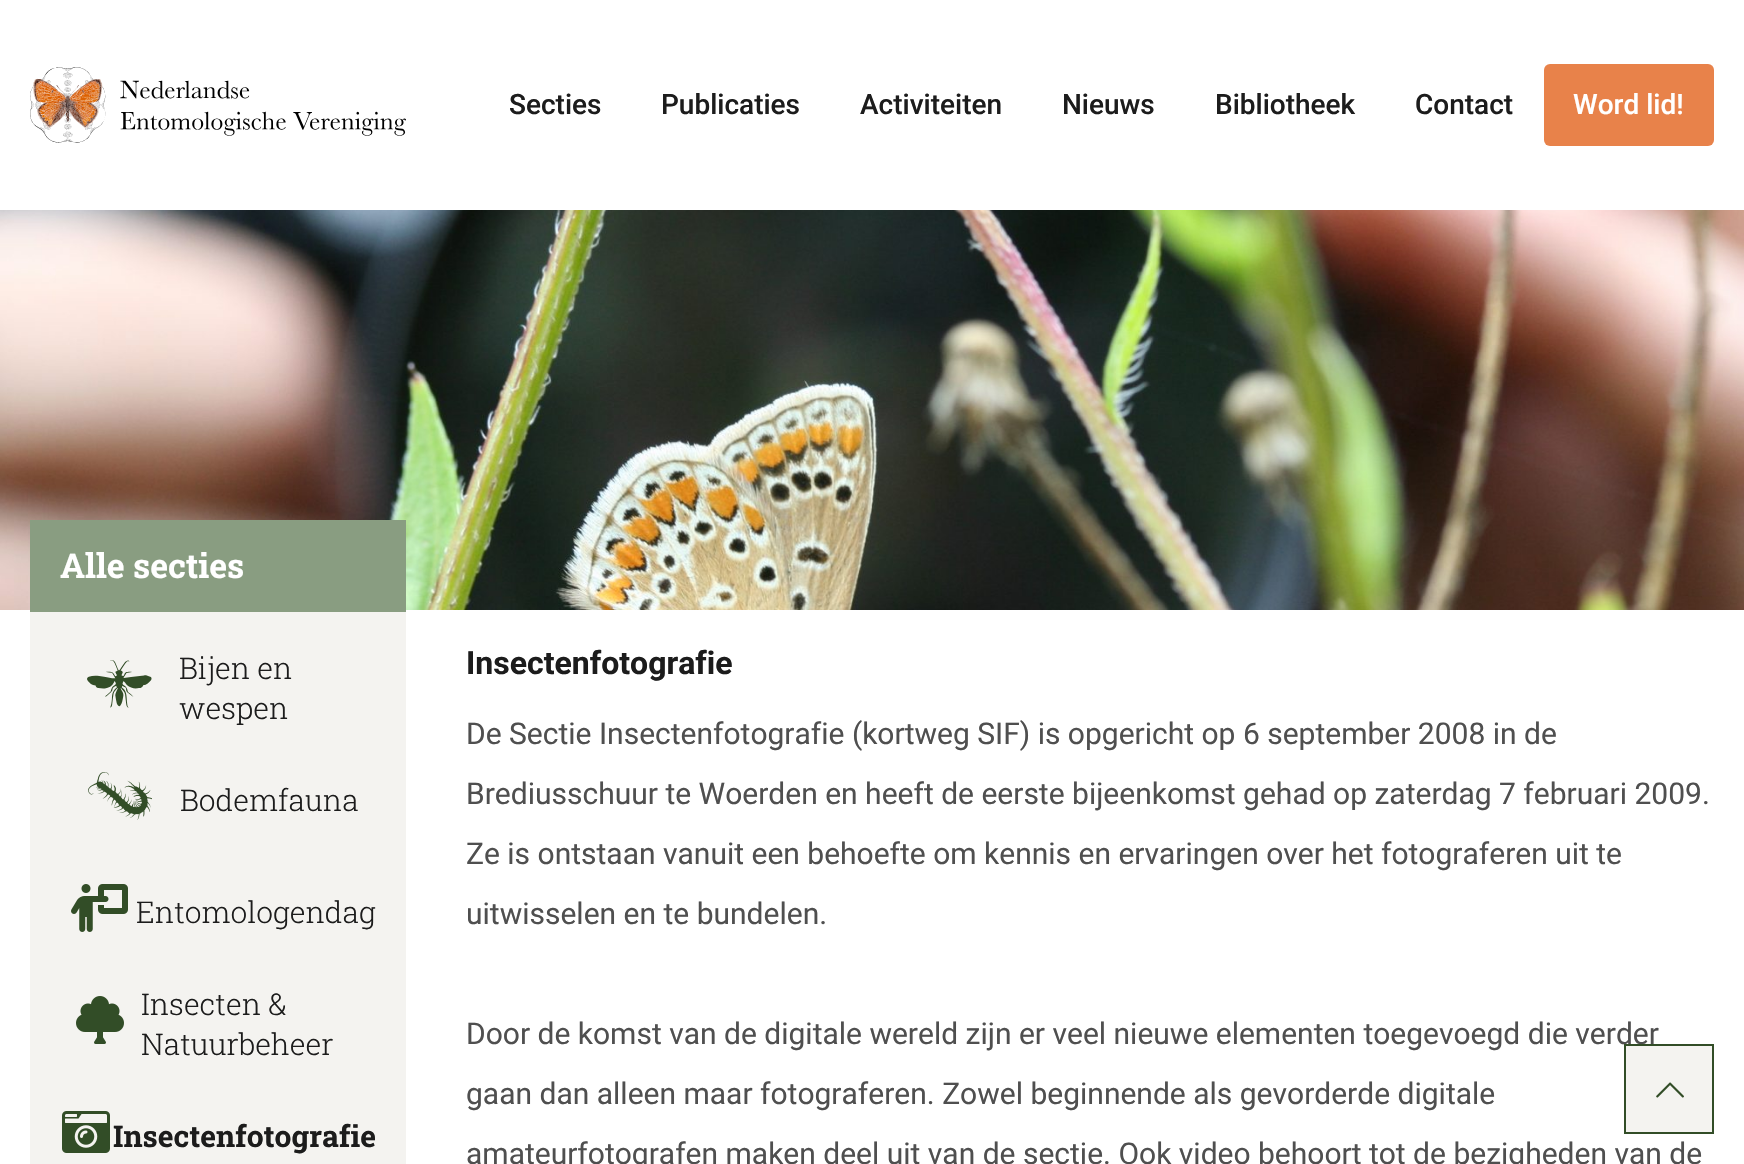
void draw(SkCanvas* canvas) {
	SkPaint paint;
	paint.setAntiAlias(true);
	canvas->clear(0xffffffff);
	canvas->drawImageRect(SkImages::DeferredFromEncodedData(SkData::MakeFromFileName("img1.png")), SkRect::MakeXYWH(30, 67, 376, 76), SkSamplingOptions());
	SkFont f1(fontMgr->matchFamilyStyle("Roboto", SkFontStyle(500, SkFontStyle::kNormal_Width, SkFontStyle::kUpright_Slant)), 28);
	f1.setSubpixel(true);
	paint.setColor(0xff1c1c1c);
	canvas->drawString("Secties", 509, 114, f1, paint);
	canvas->drawString("Publicaties", 661, 114, f1, paint);
	canvas->drawString("Activiteiten", 860, 114, f1, paint);
	canvas->drawString("Nieuws", 1062, 114, f1, paint);
	canvas->drawString("Bibliotheek", 1215, 114, f1, paint);
	canvas->drawString("Contact", 1415, 114, f1, paint);
	paint.setColor(0xffe8824a);
	canvas->drawRoundRect(SkRect::MakeXYWH(1544, 64, 170, 82), 6, 6, paint);
	paint.setColor(0xffffffff);
	canvas->drawString("Word lid!", 1573, 114, f1, paint);
	canvas->drawImageRect(SkImages::DeferredFromEncodedData(SkData::MakeFromFileName("img2.png")), SkRect::MakeXYWH(0, 210, 1744, 400), SkSamplingOptions());
	paint.setColor(0xff899d81);
	canvas->drawRect(SkRect::MakeXYWH(30, 520, 376, 92), paint);
	SkFont f2(fontMgr->matchFamilyStyle("Roboto Slab", SkFontStyle::Bold()), 34);
	f2.setSubpixel(true);
	paint.setColor(0xffffffff);
	canvas->drawString("Alle secties", 60, 578, f2, paint);
	paint.setColor(0xfff4f3f0);
	canvas->drawRect(SkRect::MakeXYWH(30, 612, 376, 552), paint);
	canvas->drawImageRect(SkImages::DeferredFromEncodedData(SkData::MakeFromFileName("img3.png")), SkRect::MakeXYWH(87, 660, 65, 48), SkSamplingOptions());
	SkFont f3(fontMgr->matchFamilyStyle("Roboto Slab", SkFontStyle(300, SkFontStyle::kNormal_Width, SkFontStyle::kUpright_Slant)), 30);
	f3.setSubpixel(true);
	paint.setColor(0xff1c1c1c);
	canvas->drawString("Bijen en", 179, 679, f3, paint);
	canvas->drawString("wespen", 179, 719, f3, paint);
	canvas->drawImageRect(SkImages::DeferredFromEncodedData(SkData::MakeFromFileName("img4.png")), SkRect::MakeXYWH(88, 772, 64, 48), SkSamplingOptions());
	canvas->drawString("Bodemfauna", 180, 811, f3, paint);
	canvas->drawImageRect(SkImages::DeferredFromEncodedData(SkData::MakeFromFileName("img5.png")), SkRect::MakeXYWH(71, 884, 57, 48), SkSamplingOptions());
	canvas->drawString("Entomologendag", 136, 923, f3, paint);
	canvas->drawImageRect(SkImages::DeferredFromEncodedData(SkData::MakeFromFileName("img6.png")), SkRect::MakeXYWH(76, 996, 48, 48), SkSamplingOptions());
	canvas->drawString("Insecten &", 141, 1015, f3, paint);
	canvas->drawString("Natuurbeheer", 141, 1055, f3, paint);
	canvas->drawImageRect(SkImages::DeferredFromEncodedData(SkData::MakeFromFileName("img7.png")), SkRect::MakeXYWH(62, 1111, 48, 42), SkSamplingOptions());
	SkFont f4(fontMgr->matchFamilyStyle("Roboto Slab", SkFontStyle::Bold()), 30);
	f4.setSubpixel(true);
	canvas->drawString("Insectenfotografie", 113, 1147, f4, paint);
	SkFont f5(fontMgr->matchFamilyStyle("Roboto", SkFontStyle::Bold()), 32);
	f5.setSubpixel(true);
	canvas->drawString("Insectenfotografie", 466, 674, f5, paint);
	SkFont f6(fontMgr->matchFamilyStyle("Roboto", SkFontStyle::Normal()), 30);
	f6.setSubpixel(true);
	paint.setColor(0xff4f4f4f);
	canvas->drawString("De Sectie Insectenfotografie (kortweg SIF) is opgericht op 6 september 2008 in de", 466, 744, f6, paint);
	canvas->drawString("Brediusschuur te Woerden en heeft de eerste bijeenkomst gehad op zaterdag 7 februari 2009.", 466, 804, f6, paint);
	canvas->drawString("Ze is ontstaan vanuit een behoefte om kennis en ervaringen over het fotograferen uit te", 466, 864, f6, paint);
	canvas->drawString("uitwisselen en te bundelen.", 466, 924, f6, paint);
	canvas->drawString("Door de komst van de digitale wereld zijn er veel nieuwe elementen toegevoegd die verder", 466, 1044, f6, paint);
	canvas->drawString("gaan dan alleen maar fotograferen. Zowel beginnende als gevorderde digitale", 466, 1104, f6, paint);
	canvas->drawString("amateurfotografen maken deel uit van de sectie. Ook video behoort tot de bezigheden van de", 466, 1164, f6, paint);
	paint.setColor(0xfff4f3f0);
	canvas->drawRect(SkRect::MakeXYWH(1625, 1045, 88, 88), paint);
	paint.setStroke(true);
	paint.setStrokeWidth(2);
	paint.setColor(0xff324d27);
	canvas->drawRect(SkRect::MakeXYWH(1625, 1045, 88, 88), paint);
	canvas->drawImageRect(SkImages::DeferredFromEncodedData(SkData::MakeFromFileName("img8.png")), SkRect::MakeXYWH(1656, 1082, 28, 16), SkSamplingOptions());
}
